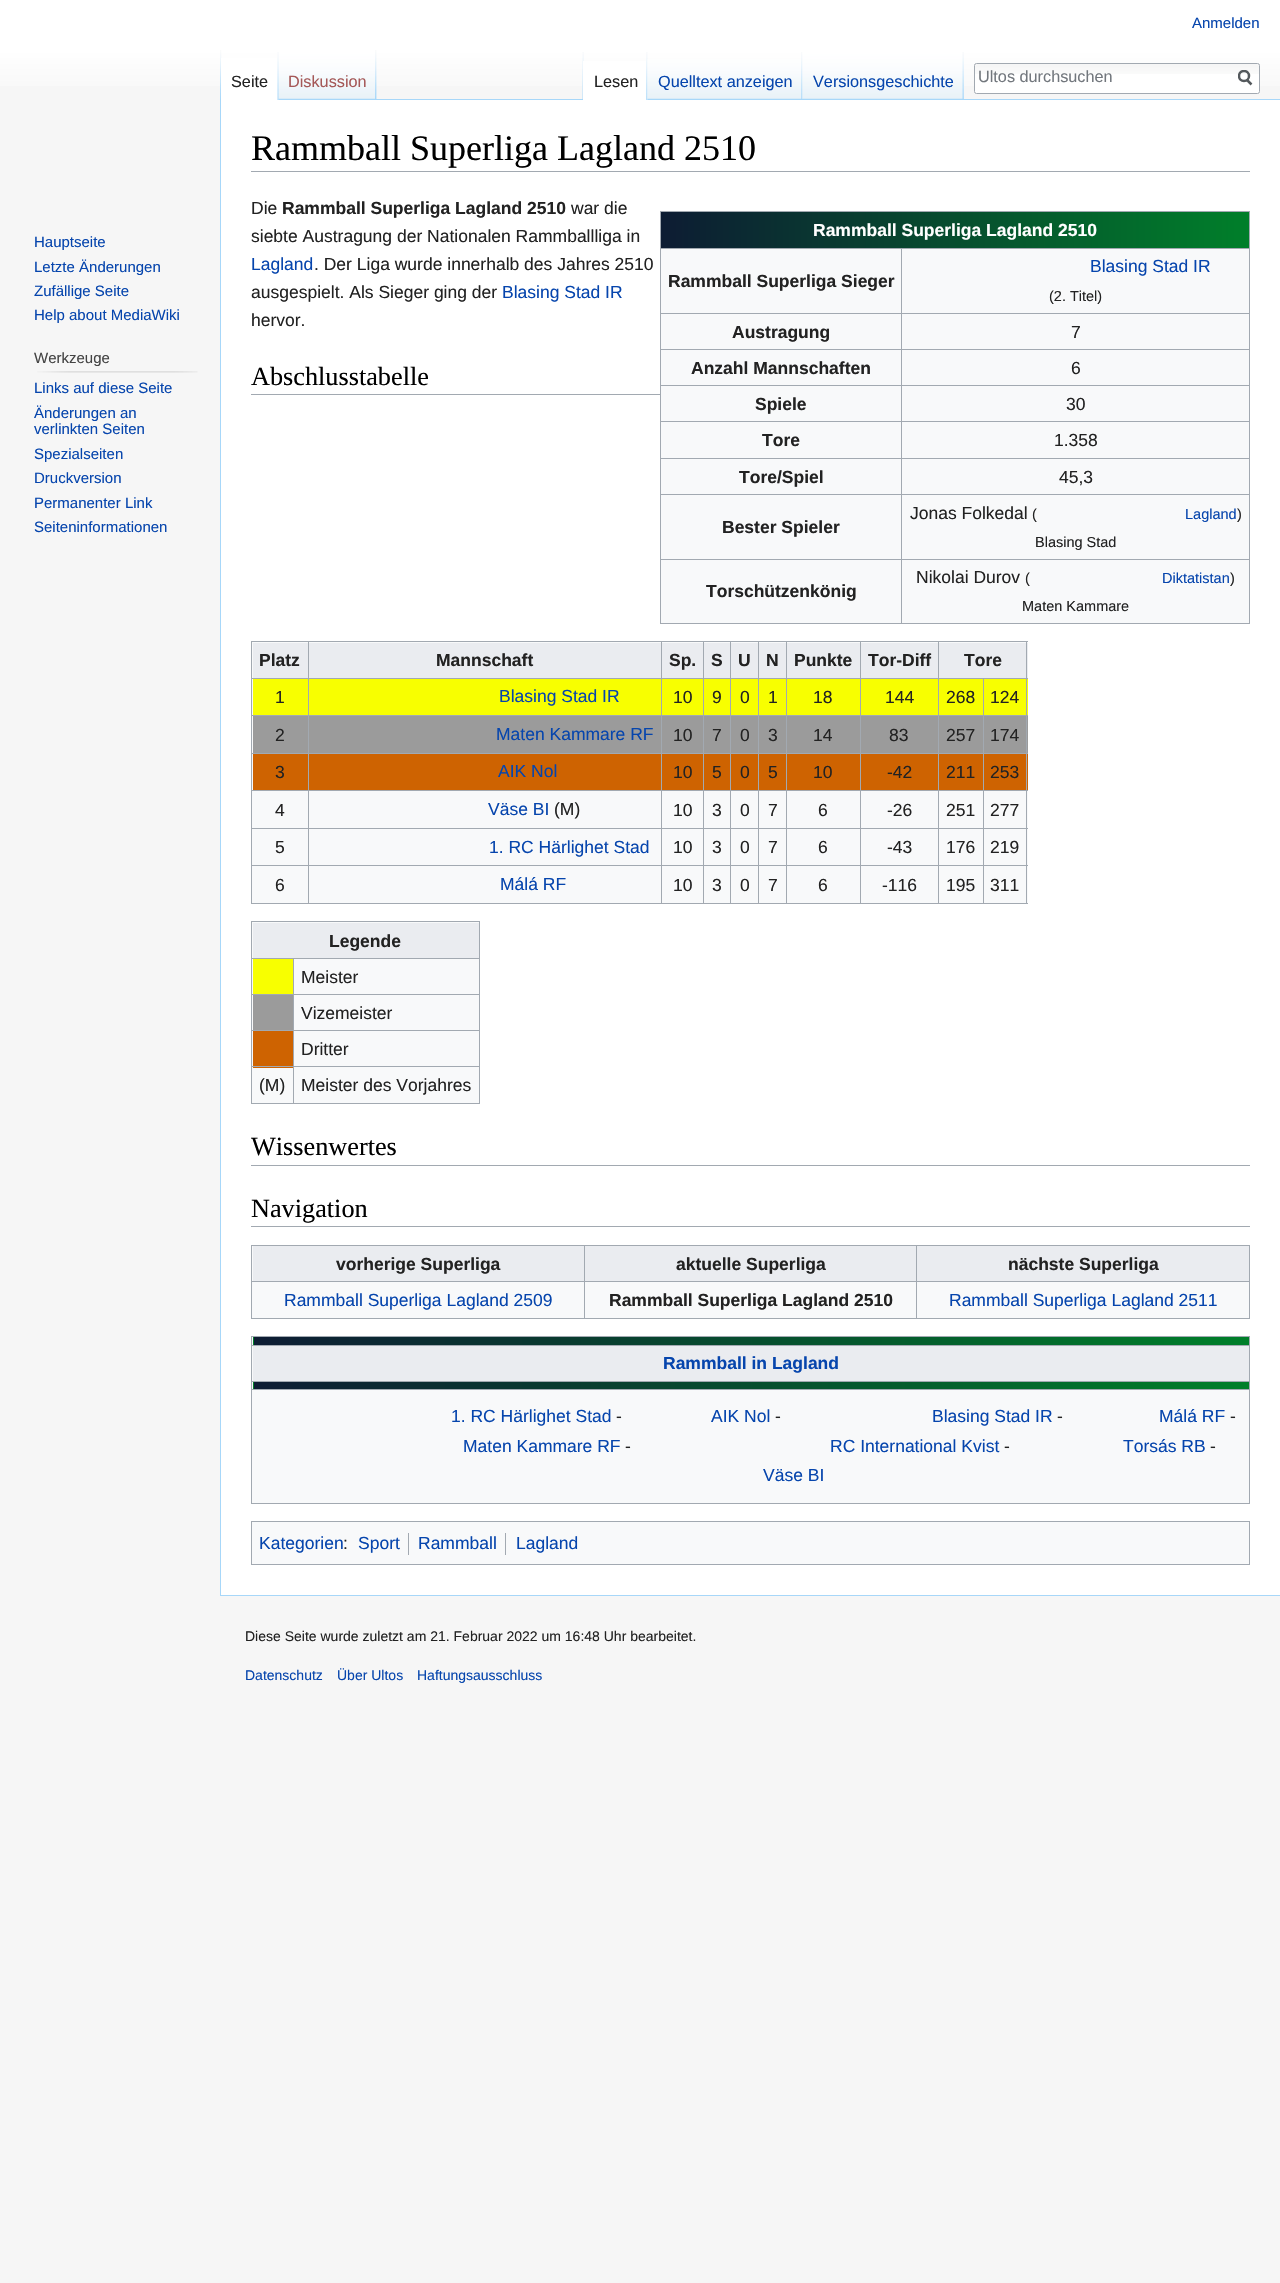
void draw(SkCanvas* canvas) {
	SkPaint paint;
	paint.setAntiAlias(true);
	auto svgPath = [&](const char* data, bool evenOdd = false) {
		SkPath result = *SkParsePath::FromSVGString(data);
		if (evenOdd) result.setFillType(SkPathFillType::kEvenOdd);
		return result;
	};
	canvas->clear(0xfff6f6f6);
	{
		const SkColor colors[] = {0xffffffff, 0xfff6f6f6};
		const float stops[] = {0.5, 1};
		const SkPoint ends[] = {{640, 0}, {640, 100}};
		paint.setShader(SkGradientShader::MakeLinear(ends, colors, stops, 2, SkTileMode::kClamp));
		paint.setAlpha(255);
	}
	canvas->drawRect(SkRect::MakeXYWH(0, 0, 1280, 86), paint);
	SkFont f1(fontMgr->matchFamilyStyle("Liberation Sans", SkFontStyle::Normal()), 15);
	f1.setSubpixel(true);
	paint.setShader(nullptr);
	paint.setColor(0xff0645ad);
	canvas->drawString("Anmelden", 1192, 28, f1, paint);
	canvas->drawImageRect(SkImages::DeferredFromEncodedData(SkData::MakeFromFileName("img1.png")), SkRect::MakeXYWH(220, 50, 2, 49), SkSamplingOptions());
	canvas->drawImageRect(SkImages::DeferredFromEncodedData(SkData::MakeFromFileName("img2.png")), SkRect::MakeXYWH(376, 50, 1, 49), SkSamplingOptions());
	paint.setColor(0xffffffff);
	canvas->drawRect(SkRect::MakeXYWH(221, 58, 58, 42), paint);
	canvas->drawImageRect(SkImages::DeferredFromEncodedData(SkData::MakeFromFileName("img3.png")), SkRect::MakeXYWH(277, 52, 2, 48), SkSamplingOptions());
	SkFont f2(fontMgr->matchFamilyStyle("Liberation Sans", SkFontStyle::Normal()), 16.25);
	f2.setSubpixel(true);
	paint.setColor(0xff222222);
	canvas->drawString("Seite", 231, 87, f2, paint);
	canvas->drawImageRect(SkImages::DeferredFromEncodedData(SkData::MakeFromFileName("img4.png")), SkRect::MakeXYWH(278, 50, 98, 50), SkSamplingOptions());
	canvas->drawImageRect(SkImages::DeferredFromEncodedData(SkData::MakeFromFileName("img5.png")), SkRect::MakeXYWH(375, 50, 2, 49), SkSamplingOptions());
	paint.setColor(0xffa55858);
	canvas->drawString("Diskussion", 288, 87, f2, paint);
	canvas->drawImageRect(SkImages::DeferredFromEncodedData(SkData::MakeFromFileName("img6.png")), SkRect::MakeXYWH(582, 52, 2, 47), SkSamplingOptions());
	canvas->drawImageRect(SkImages::DeferredFromEncodedData(SkData::MakeFromFileName("img7.png")), SkRect::MakeXYWH(963, 52, 1, 47), SkSamplingOptions());
	paint.setColor(0xffa7d7f9);
	canvas->drawRect(SkRect::MakeXYWH(376, 99, 904, 1), paint);
	paint.setColor(0xffffffff);
	canvas->drawRect(SkRect::MakeXYWH(583, 61, 65, 39), paint);
	canvas->drawImageRect(SkImages::DeferredFromEncodedData(SkData::MakeFromFileName("img8.png")), SkRect::MakeXYWH(646, 52, 2, 48), SkSamplingOptions());
	paint.setColor(0xff222222);
	canvas->drawString("Lesen", 594, 87, f2, paint);
	canvas->drawImageRect(SkImages::DeferredFromEncodedData(SkData::MakeFromFileName("img9.png")), SkRect::MakeXYWH(647, 59, 156, 41), SkSamplingOptions());
	canvas->drawImageRect(SkImages::DeferredFromEncodedData(SkData::MakeFromFileName("img10.png")), SkRect::MakeXYWH(801, 52, 2, 47), SkSamplingOptions());
	paint.setColor(0xff0645ad);
	canvas->drawString("Quelltext anzeigen", 658, 87, f2, paint);
	canvas->drawImageRect(SkImages::DeferredFromEncodedData(SkData::MakeFromFileName("img11.png")), SkRect::MakeXYWH(802, 52, 162, 47), SkSamplingOptions());
	canvas->drawImageRect(SkImages::DeferredFromEncodedData(SkData::MakeFromFileName("img12.png")), SkRect::MakeXYWH(962, 52, 2, 47), SkSamplingOptions());
	canvas->drawString("Versionsgeschichte", 813, 87, f2, paint);
	paint.setColor(0xffffffff);
	canvas->drawRoundRect(SkRect::MakeXYWH(974, 63, 286, 31), 2.5, 2.5, paint);
	canvas->drawImageRect(SkImages::DeferredFromEncodedData(SkData::MakeFromFileName("img13.png")), SkRect::MakeXYWH(974, 64, 286, 10), SkSamplingOptions());
	paint.setStroke(true);
	paint.setStrokeWidth(1);
	paint.setColor(0xffa2a9b1);
	canvas->drawRoundRect(SkRect::MakeXYWH(974.5, 63.5, 285, 30), 2, 2, paint);
	paint.setStroke(false);
	paint.setColor(0xff72777d);
	canvas->drawString("Ultos durchsuchen", 978, 82, f2, paint);
	paint.setStroke(true);
	paint.setStrokeWidth(2.5);
	paint.setColor(0xff54595d);
	canvas->drawPath(svgPath("M1251.5 84.5L1246.5 79.5"), paint);
	canvas->save();
	canvas->clipRect(SkRect::MakeXYWH(1238, 70, 15, 16));
	canvas->drawCircle(1244, 76, 5, paint);
	canvas->restore();
	paint.setStroke(false);
	paint.setColor(0xff0645ad);
	canvas->drawString("Hauptseite", 34, 247, f1, paint);
	canvas->drawString("Letzte Änderungen", 34, 272, f1, paint);
	canvas->drawString("Zufällige Seite", 34, 296, f1, paint);
	canvas->drawString("Help about MediaWiki", 34, 320, f1, paint);
	paint.setColor(0xff444444);
	canvas->drawString("Werkzeuge", 34, 363, f1, paint);
	canvas->drawImageRect(SkImages::DeferredFromEncodedData(SkData::MakeFromFileName("img14.png")), SkRect::MakeXYWH(37, 371, 161, 2), SkSamplingOptions());
	paint.setColor(0xff0645ad);
	canvas->drawString("Links auf diese Seite", 34, 393, f1, paint);
	canvas->drawString("Änderungen an", 34, 418, f1, paint);
	canvas->drawString("verlinkten Seiten", 34, 434, f1, paint);
	canvas->drawString("Spezialseiten", 34, 459, f1, paint);
	canvas->drawString("Druckversion", 34, 483, f1, paint);
	canvas->drawString("Permanenter Link", 34, 508, f1, paint);
	canvas->drawString("Seiteninformationen", 34, 532, f1, paint);
	paint.setColor(0xffffffff);
	canvas->drawRect(SkRect::MakeXYWH(221, 100, 1059, 1495), paint);
	paint.setColor(0xffa7d7f9);
	canvas->drawRect(SkRect::MakeXYWH(220, 1595, 1060, 1), paint);
	canvas->drawRect(SkRect::MakeXYWH(220, 99, 1, 1497), paint);
	paint.setColor(0xffa2a9b1);
	canvas->drawRect(SkRect::MakeXYWH(251, 171, 999, 1), paint);
	SkFont f3(fontMgr->matchFamilyStyle("Liberation Serif", SkFontStyle::Normal()), 36);
	f3.setSubpixel(true);
	paint.setColor(0xff000000);
	canvas->drawString("Rammball Superliga Lagland 2510", 251, 160, f3, paint);
	SkFont f4(fontMgr->matchFamilyStyle("Liberation Sans", SkFontStyle::Normal()), 17.5);
	f4.setSubpixel(true);
	paint.setColor(0xff222222);
	canvas->drawString("Die", 251, 214, f4, paint);
	SkFont f5(fontMgr->matchFamilyStyle("Liberation Sans", SkFontStyle::Bold()), 17.5);
	f5.setSubpixel(true);
	canvas->drawString("Rammball Superliga Lagland 2510", 282, 214, f5, paint);
	canvas->drawString("war die", 571, 214, f4, paint);
	canvas->drawString("siebte Austragung der Nationalen Rammballliga in", 251, 242, f4, paint);
	paint.setColor(0xff0645ad);
	canvas->drawString("Lagland", 251, 270, f4, paint);
	paint.setColor(0xff222222);
	canvas->drawString(". Der Liga wurde innerhalb des Jahres 2510", 314, 270, f4, paint);
	canvas->drawString("ausgespielt. Als Sieger ging der", 251, 298, f4, paint);
	paint.setColor(0xff0645ad);
	canvas->drawString("Blasing Stad IR", 502, 298, f4, paint);
	paint.setColor(0xff222222);
	canvas->drawString("hervor.", 251, 326, f4, paint);
	paint.setColor(0xfff8f9fa);
	canvas->drawRect(SkRect::MakeXYWH(661, 249, 588, 374), paint);
	paint.setColor(0xffa2a9b1);
	canvas->drawRect(SkRect::MakeXYWH(660, 211, 590, 1), paint);
	canvas->drawRect(SkRect::MakeXYWH(1249, 211, 1, 413), paint);
	canvas->drawRect(SkRect::MakeXYWH(660, 623, 590, 1), paint);
	canvas->drawRect(SkRect::MakeXYWH(660, 211, 1, 413), paint);
	{
		const SkColor colors[] = {0xff0d1c33, 0xff007f2a};
		const float stops[] = {0, 1};
		const SkPoint ends[] = {{661, 229}, {1249, 229}};
		paint.setShader(SkGradientShader::MakeLinear(ends, colors, stops, 2, SkTileMode::kClamp));
		paint.setAlpha(255);
	}
	canvas->drawRect(SkRect::MakeXYWH(661, 212, 588, 36), paint);
	paint.setShader(nullptr);
	paint.setColor(0xffffffff);
	canvas->drawString("Rammball Superliga Lagland 2510", 813, 236, f5, paint);
	paint.setColor(0xffa2a9b1);
	canvas->drawRect(SkRect::MakeXYWH(901, 248, 349, 1), paint);
	canvas->drawRect(SkRect::MakeXYWH(901, 313, 349, 1), paint);
	canvas->drawRect(SkRect::MakeXYWH(901, 349, 349, 1), paint);
	canvas->drawRect(SkRect::MakeXYWH(901, 385, 349, 1), paint);
	canvas->drawRect(SkRect::MakeXYWH(901, 421, 349, 1), paint);
	canvas->drawRect(SkRect::MakeXYWH(901, 458, 349, 1), paint);
	canvas->drawRect(SkRect::MakeXYWH(901, 494, 349, 1), paint);
	canvas->drawRect(SkRect::MakeXYWH(901, 559, 349, 1), paint);
	canvas->drawRect(SkRect::MakeXYWH(901, 559, 1, 65), paint);
	canvas->drawRect(SkRect::MakeXYWH(660, 559, 243, 1), paint);
	canvas->drawRect(SkRect::MakeXYWH(901, 494, 1, 66), paint);
	canvas->drawRect(SkRect::MakeXYWH(660, 494, 243, 1), paint);
	canvas->drawRect(SkRect::MakeXYWH(901, 458, 1, 37), paint);
	canvas->drawRect(SkRect::MakeXYWH(660, 458, 243, 1), paint);
	canvas->drawRect(SkRect::MakeXYWH(901, 421, 1, 38), paint);
	canvas->drawRect(SkRect::MakeXYWH(660, 421, 243, 1), paint);
	canvas->drawRect(SkRect::MakeXYWH(901, 385, 1, 38), paint);
	canvas->drawRect(SkRect::MakeXYWH(660, 385, 243, 1), paint);
	canvas->drawRect(SkRect::MakeXYWH(901, 349, 1, 37), paint);
	canvas->drawRect(SkRect::MakeXYWH(660, 349, 243, 1), paint);
	canvas->drawRect(SkRect::MakeXYWH(901, 313, 1, 37), paint);
	canvas->drawRect(SkRect::MakeXYWH(660, 313, 243, 1), paint);
	canvas->drawRect(SkRect::MakeXYWH(901, 248, 1, 66), paint);
	canvas->drawRect(SkRect::MakeXYWH(660, 248, 243, 1), paint);
	paint.setColor(0xff222222);
	canvas->drawString("Rammball Superliga Sieger", 668, 287, f5, paint);
	paint.setColor(0xff0645ad);
	canvas->drawString("Blasing Stad IR", 1090, 272, f4, paint);
	SkFont f6(fontMgr->matchFamilyStyle("Liberation Sans", SkFontStyle::Normal()), 14.5);
	f6.setSubpixel(true);
	paint.setColor(0xff222222);
	canvas->drawString("(2. Titel)", 1049, 301, f6, paint);
	canvas->drawString("Austragung", 732, 338, f5, paint);
	canvas->drawString("7", 1071, 338, f4, paint);
	canvas->drawString("Anzahl Mannschaften", 691, 374, f5, paint);
	canvas->drawString("6", 1071, 374, f4, paint);
	canvas->drawString("Spiele", 755, 410, f5, paint);
	canvas->drawString("30", 1066, 410, f4, paint);
	canvas->drawString("Tore", 762, 446, f5, paint);
	canvas->drawString("1.358", 1054, 446, f4, paint);
	canvas->drawString("Tore/Spiel", 739, 483, f5, paint);
	canvas->drawString("45,3", 1059, 483, f4, paint);
	canvas->drawString("Bester Spieler", 722, 533, f5, paint);
	canvas->drawString("Jonas Folkedal", 910, 519, f4, paint);
	canvas->drawString("(", 1032, 519, f6, paint);
	paint.setColor(0xff0645ad);
	canvas->drawString("Lagland", 1185, 519, f6, paint);
	paint.setColor(0xff222222);
	canvas->drawString(")", 1237, 519, f6, paint);
	canvas->drawString("Blasing Stad", 1035, 547, f6, paint);
	canvas->drawString("Torschützenkönig", 706, 597, f5, paint);
	canvas->drawString("Nikolai Durov", 916, 583, f4, paint);
	canvas->drawString("(", 1025, 583, f6, paint);
	paint.setColor(0xff0645ad);
	canvas->drawString("Diktatistan", 1162, 583, f6, paint);
	paint.setColor(0xff222222);
	canvas->drawString(")", 1230, 583, f6, paint);
	canvas->drawString("Maten Kammare", 1022, 611, f6, paint);
	paint.setColor(0xffa2a9b1);
	canvas->drawRect(SkRect::MakeXYWH(251, 394, 409, 1), paint);
	SkFont f7(fontMgr->matchFamilyStyle("Liberation Serif", SkFontStyle::Normal()), 26.25);
	f7.setSubpixel(true);
	paint.setColor(0xff000000);
	canvas->drawString("Abschlusstabelle", 251, 385, f7, paint);
	paint.setColor(0xfff8f9fa);
	canvas->drawRect(SkRect::MakeXYWH(252, 642, 776, 261), paint);
	paint.setColor(0xffa2a9b1);
	canvas->drawRect(SkRect::MakeXYWH(251, 641, 777, 1), paint);
	paint.setColor(0xffeaecf0);
	canvas->drawRect(SkRect::MakeXYWH(939, 643, 89, 35), paint);
	paint.setColor(0xfff8ff00);
	canvas->drawRect(SkRect::MakeXYWH(253, 679, 775, 36), paint);
	paint.setColor(0xff9b9b9b);
	canvas->drawRect(SkRect::MakeXYWH(253, 716, 775, 37), paint);
	paint.setColor(0xffce6301);
	canvas->drawRect(SkRect::MakeXYWH(253, 754, 775, 36), paint);
	paint.setColor(0xffa2a9b1);
	canvas->drawRect(SkRect::MakeXYWH(1026, 641, 1, 263), paint);
	canvas->drawRect(SkRect::MakeXYWH(251, 903, 777, 1), paint);
	canvas->drawRect(SkRect::MakeXYWH(251, 641, 1, 263), paint);
	paint.setColor(0xffeaecf0);
	canvas->drawRect(SkRect::MakeXYWH(253, 643, 55, 35), paint);
	paint.setColor(0xff222222);
	canvas->drawString("Platz", 259, 666, f5, paint);
	paint.setColor(0xffeaecf0);
	canvas->drawRect(SkRect::MakeXYWH(309, 643, 352, 35), paint);
	paint.setColor(0xffa2a9b1);
	canvas->drawRect(SkRect::MakeXYWH(983, 678, 45, 1), paint);
	canvas->drawRect(SkRect::MakeXYWH(983, 715, 45, 1), paint);
	canvas->drawRect(SkRect::MakeXYWH(983, 753, 45, 1), paint);
	canvas->drawRect(SkRect::MakeXYWH(983, 790, 45, 1), paint);
	canvas->drawRect(SkRect::MakeXYWH(983, 828, 45, 1), paint);
	canvas->drawRect(SkRect::MakeXYWH(983, 865, 45, 1), paint);
	canvas->drawRect(SkRect::MakeXYWH(983, 865, 1, 39), paint);
	canvas->drawRect(SkRect::MakeXYWH(938, 865, 46, 1), paint);
	canvas->drawRect(SkRect::MakeXYWH(983, 828, 1, 38), paint);
	canvas->drawRect(SkRect::MakeXYWH(938, 828, 46, 1), paint);
	canvas->drawRect(SkRect::MakeXYWH(983, 790, 1, 39), paint);
	canvas->drawRect(SkRect::MakeXYWH(938, 790, 46, 1), paint);
	canvas->drawRect(SkRect::MakeXYWH(983, 753, 1, 38), paint);
	canvas->drawRect(SkRect::MakeXYWH(938, 753, 46, 1), paint);
	canvas->drawRect(SkRect::MakeXYWH(983, 715, 1, 39), paint);
	canvas->drawRect(SkRect::MakeXYWH(938, 715, 46, 1), paint);
	canvas->drawRect(SkRect::MakeXYWH(983, 678, 1, 38), paint);
	canvas->drawRect(SkRect::MakeXYWH(938, 678, 46, 1), paint);
	canvas->drawRect(SkRect::MakeXYWH(938, 865, 1, 39), paint);
	canvas->drawRect(SkRect::MakeXYWH(860, 865, 79, 1), paint);
	canvas->drawRect(SkRect::MakeXYWH(938, 828, 1, 38), paint);
	canvas->drawRect(SkRect::MakeXYWH(860, 828, 79, 1), paint);
	canvas->drawRect(SkRect::MakeXYWH(938, 790, 1, 39), paint);
	canvas->drawRect(SkRect::MakeXYWH(860, 790, 79, 1), paint);
	canvas->drawRect(SkRect::MakeXYWH(938, 753, 1, 38), paint);
	canvas->drawRect(SkRect::MakeXYWH(860, 753, 79, 1), paint);
	canvas->drawRect(SkRect::MakeXYWH(938, 715, 1, 39), paint);
	canvas->drawRect(SkRect::MakeXYWH(860, 715, 79, 1), paint);
	canvas->drawRect(SkRect::MakeXYWH(938, 678, 1, 38), paint);
	canvas->drawRect(SkRect::MakeXYWH(860, 678, 79, 1), paint);
	canvas->drawRect(SkRect::MakeXYWH(860, 865, 1, 39), paint);
	canvas->drawRect(SkRect::MakeXYWH(786, 865, 75, 1), paint);
	canvas->drawRect(SkRect::MakeXYWH(860, 828, 1, 38), paint);
	canvas->drawRect(SkRect::MakeXYWH(786, 828, 75, 1), paint);
	canvas->drawRect(SkRect::MakeXYWH(860, 790, 1, 39), paint);
	canvas->drawRect(SkRect::MakeXYWH(786, 790, 75, 1), paint);
	canvas->drawRect(SkRect::MakeXYWH(860, 753, 1, 38), paint);
	canvas->drawRect(SkRect::MakeXYWH(786, 753, 75, 1), paint);
	canvas->drawRect(SkRect::MakeXYWH(860, 715, 1, 39), paint);
	canvas->drawRect(SkRect::MakeXYWH(786, 715, 75, 1), paint);
	canvas->drawRect(SkRect::MakeXYWH(860, 678, 1, 38), paint);
	canvas->drawRect(SkRect::MakeXYWH(786, 678, 75, 1), paint);
	canvas->drawRect(SkRect::MakeXYWH(786, 865, 1, 39), paint);
	canvas->drawRect(SkRect::MakeXYWH(758, 865, 30, 1), paint);
	canvas->drawRect(SkRect::MakeXYWH(786, 828, 1, 38), paint);
	canvas->drawRect(SkRect::MakeXYWH(758, 828, 30, 1), paint);
	canvas->drawRect(SkRect::MakeXYWH(786, 790, 1, 39), paint);
	canvas->drawRect(SkRect::MakeXYWH(758, 790, 30, 1), paint);
	canvas->drawRect(SkRect::MakeXYWH(786, 753, 1, 38), paint);
	canvas->drawRect(SkRect::MakeXYWH(758, 753, 30, 1), paint);
	canvas->drawRect(SkRect::MakeXYWH(786, 715, 1, 39), paint);
	canvas->drawRect(SkRect::MakeXYWH(758, 715, 30, 1), paint);
	canvas->drawRect(SkRect::MakeXYWH(786, 678, 1, 38), paint);
	canvas->drawRect(SkRect::MakeXYWH(758, 678, 30, 1), paint);
	canvas->drawRect(SkRect::MakeXYWH(758, 865, 1, 39), paint);
	canvas->drawRect(SkRect::MakeXYWH(730, 865, 29, 1), paint);
	canvas->drawRect(SkRect::MakeXYWH(758, 828, 1, 38), paint);
	canvas->drawRect(SkRect::MakeXYWH(730, 828, 29, 1), paint);
	canvas->drawRect(SkRect::MakeXYWH(758, 790, 1, 39), paint);
	canvas->drawRect(SkRect::MakeXYWH(730, 790, 29, 1), paint);
	canvas->drawRect(SkRect::MakeXYWH(758, 753, 1, 38), paint);
	canvas->drawRect(SkRect::MakeXYWH(730, 753, 29, 1), paint);
	canvas->drawRect(SkRect::MakeXYWH(758, 715, 1, 39), paint);
	canvas->drawRect(SkRect::MakeXYWH(730, 715, 29, 1), paint);
	canvas->drawRect(SkRect::MakeXYWH(758, 678, 1, 38), paint);
	canvas->drawRect(SkRect::MakeXYWH(730, 678, 29, 1), paint);
	canvas->drawRect(SkRect::MakeXYWH(730, 865, 1, 39), paint);
	canvas->drawRect(SkRect::MakeXYWH(703, 865, 28, 1), paint);
	canvas->drawRect(SkRect::MakeXYWH(730, 828, 1, 38), paint);
	canvas->drawRect(SkRect::MakeXYWH(703, 828, 28, 1), paint);
	canvas->drawRect(SkRect::MakeXYWH(730, 790, 1, 39), paint);
	canvas->drawRect(SkRect::MakeXYWH(703, 790, 28, 1), paint);
	canvas->drawRect(SkRect::MakeXYWH(730, 753, 1, 38), paint);
	canvas->drawRect(SkRect::MakeXYWH(703, 753, 28, 1), paint);
	canvas->drawRect(SkRect::MakeXYWH(730, 715, 1, 39), paint);
	canvas->drawRect(SkRect::MakeXYWH(703, 715, 28, 1), paint);
	canvas->drawRect(SkRect::MakeXYWH(730, 678, 1, 38), paint);
	canvas->drawRect(SkRect::MakeXYWH(703, 678, 28, 1), paint);
	canvas->drawRect(SkRect::MakeXYWH(703, 865, 1, 39), paint);
	canvas->drawRect(SkRect::MakeXYWH(661, 865, 43, 1), paint);
	canvas->drawRect(SkRect::MakeXYWH(703, 828, 1, 38), paint);
	canvas->drawRect(SkRect::MakeXYWH(661, 828, 43, 1), paint);
	canvas->drawRect(SkRect::MakeXYWH(703, 790, 1, 39), paint);
	canvas->drawRect(SkRect::MakeXYWH(661, 790, 43, 1), paint);
	canvas->drawRect(SkRect::MakeXYWH(703, 753, 1, 38), paint);
	canvas->drawRect(SkRect::MakeXYWH(661, 753, 43, 1), paint);
	canvas->drawRect(SkRect::MakeXYWH(703, 715, 1, 39), paint);
	canvas->drawRect(SkRect::MakeXYWH(661, 715, 43, 1), paint);
	canvas->drawRect(SkRect::MakeXYWH(703, 678, 1, 38), paint);
	canvas->drawRect(SkRect::MakeXYWH(661, 678, 43, 1), paint);
	canvas->drawRect(SkRect::MakeXYWH(661, 865, 1, 39), paint);
	canvas->drawRect(SkRect::MakeXYWH(308, 865, 355, 1), paint);
	canvas->drawRect(SkRect::MakeXYWH(661, 828, 1, 38), paint);
	canvas->drawRect(SkRect::MakeXYWH(308, 828, 355, 1), paint);
	canvas->drawRect(SkRect::MakeXYWH(661, 790, 1, 39), paint);
	canvas->drawRect(SkRect::MakeXYWH(308, 790, 355, 1), paint);
	canvas->drawRect(SkRect::MakeXYWH(661, 753, 1, 38), paint);
	canvas->drawRect(SkRect::MakeXYWH(308, 753, 355, 1), paint);
	canvas->drawRect(SkRect::MakeXYWH(661, 715, 1, 39), paint);
	canvas->drawRect(SkRect::MakeXYWH(308, 715, 355, 1), paint);
	canvas->drawRect(SkRect::MakeXYWH(661, 678, 1, 38), paint);
	canvas->drawRect(SkRect::MakeXYWH(308, 678, 355, 1), paint);
	canvas->drawRect(SkRect::MakeXYWH(308, 865, 1, 39), paint);
	canvas->drawRect(SkRect::MakeXYWH(251, 865, 58, 1), paint);
	canvas->drawRect(SkRect::MakeXYWH(308, 828, 1, 38), paint);
	canvas->drawRect(SkRect::MakeXYWH(251, 828, 58, 1), paint);
	canvas->drawRect(SkRect::MakeXYWH(308, 790, 1, 39), paint);
	canvas->drawRect(SkRect::MakeXYWH(251, 790, 58, 1), paint);
	canvas->drawRect(SkRect::MakeXYWH(308, 753, 1, 38), paint);
	canvas->drawRect(SkRect::MakeXYWH(251, 753, 58, 1), paint);
	canvas->drawRect(SkRect::MakeXYWH(308, 715, 1, 39), paint);
	canvas->drawRect(SkRect::MakeXYWH(251, 715, 58, 1), paint);
	canvas->drawRect(SkRect::MakeXYWH(308, 678, 1, 38), paint);
	canvas->drawRect(SkRect::MakeXYWH(251, 678, 58, 1), paint);
	canvas->drawRect(SkRect::MakeXYWH(308, 641, 1, 38), paint);
	paint.setColor(0xff222222);
	canvas->drawString("Mannschaft", 436, 666, f5, paint);
	paint.setColor(0xffeaecf0);
	canvas->drawRect(SkRect::MakeXYWH(662, 643, 41, 35), paint);
	paint.setColor(0xffa2a9b1);
	canvas->drawRect(SkRect::MakeXYWH(661, 641, 1, 38), paint);
	paint.setColor(0xff222222);
	canvas->drawString("Sp.", 669, 666, f5, paint);
	paint.setColor(0xffeaecf0);
	canvas->drawRect(SkRect::MakeXYWH(704, 643, 26, 35), paint);
	paint.setColor(0xffa2a9b1);
	canvas->drawRect(SkRect::MakeXYWH(703, 641, 1, 38), paint);
	paint.setColor(0xff222222);
	canvas->drawString("S", 711, 666, f5, paint);
	paint.setColor(0xffeaecf0);
	canvas->drawRect(SkRect::MakeXYWH(731, 643, 27, 35), paint);
	paint.setColor(0xffa2a9b1);
	canvas->drawRect(SkRect::MakeXYWH(730, 641, 1, 38), paint);
	paint.setColor(0xff222222);
	canvas->drawString("U", 738, 666, f5, paint);
	paint.setColor(0xffeaecf0);
	canvas->drawRect(SkRect::MakeXYWH(759, 643, 27, 35), paint);
	paint.setColor(0xffa2a9b1);
	canvas->drawRect(SkRect::MakeXYWH(758, 641, 1, 38), paint);
	paint.setColor(0xff222222);
	canvas->drawString("N", 766, 666, f5, paint);
	paint.setColor(0xffeaecf0);
	canvas->drawRect(SkRect::MakeXYWH(787, 643, 73, 35), paint);
	paint.setColor(0xffa2a9b1);
	canvas->drawRect(SkRect::MakeXYWH(786, 641, 1, 38), paint);
	paint.setColor(0xff222222);
	canvas->drawString("Punkte", 794, 666, f5, paint);
	paint.setColor(0xffeaecf0);
	canvas->drawRect(SkRect::MakeXYWH(861, 643, 77, 35), paint);
	paint.setColor(0xffa2a9b1);
	canvas->drawRect(SkRect::MakeXYWH(860, 641, 1, 38), paint);
	paint.setColor(0xff222222);
	canvas->drawString("Tor-Diff", 868, 666, f5, paint);
	paint.setColor(0xffa2a9b1);
	canvas->drawRect(SkRect::MakeXYWH(938, 641, 1, 38), paint);
	paint.setColor(0xff222222);
	canvas->drawString("Tore", 964, 666, f5, paint);
	canvas->drawString("1", 275, 703, f4, paint);
	paint.setColor(0xff0645ad);
	canvas->drawString("Blasing Stad IR", 499, 702, f4, paint);
	paint.setColor(0xff222222);
	canvas->drawString("10", 673, 703, f4, paint);
	canvas->drawString("9", 712, 703, f4, paint);
	canvas->drawString("0", 740, 703, f4, paint);
	canvas->drawString("1", 768, 703, f4, paint);
	canvas->drawString("18", 813, 703, f4, paint);
	canvas->drawString("144", 885, 703, f4, paint);
	canvas->drawString("268", 946, 703, f4, paint);
	canvas->drawString("124", 990, 703, f4, paint);
	canvas->drawString("2", 275, 741, f4, paint);
	paint.setColor(0xff0645ad);
	canvas->drawString("Maten Kammare RF", 496, 740, f4, paint);
	paint.setColor(0xff222222);
	canvas->drawString("10", 673, 741, f4, paint);
	canvas->drawString("7", 712, 741, f4, paint);
	canvas->drawString("0", 740, 741, f4, paint);
	canvas->drawString("3", 768, 741, f4, paint);
	canvas->drawString("14", 813, 741, f4, paint);
	canvas->drawString("83", 889, 741, f4, paint);
	canvas->drawString("257", 946, 741, f4, paint);
	canvas->drawString("174", 990, 741, f4, paint);
	canvas->drawString("3", 275, 778, f4, paint);
	paint.setColor(0xff0645ad);
	canvas->drawString("AIK Nol", 498, 777, f4, paint);
	paint.setColor(0xff222222);
	canvas->drawString("10", 673, 778, f4, paint);
	canvas->drawString("5", 712, 778, f4, paint);
	canvas->drawString("0", 740, 778, f4, paint);
	canvas->drawString("5", 768, 778, f4, paint);
	canvas->drawString("10", 813, 778, f4, paint);
	canvas->drawString("-42", 887, 778, f4, paint);
	canvas->drawString("211", 946, 778, f4, paint);
	canvas->drawString("253", 990, 778, f4, paint);
	canvas->drawString("4", 275, 816, f4, paint);
	paint.setColor(0xff0645ad);
	canvas->drawString("Väse BI", 488, 815, f4, paint);
	paint.setColor(0xff222222);
	canvas->drawString("(M)", 554, 815, f4, paint);
	canvas->drawString("10", 673, 816, f4, paint);
	canvas->drawString("3", 712, 816, f4, paint);
	canvas->drawString("0", 740, 816, f4, paint);
	canvas->drawString("7", 768, 816, f4, paint);
	canvas->drawString("6", 818, 816, f4, paint);
	canvas->drawString("-26", 887, 816, f4, paint);
	canvas->drawString("251", 946, 816, f4, paint);
	canvas->drawString("277", 990, 816, f4, paint);
	canvas->drawString("5", 275, 853, f4, paint);
	paint.setColor(0xff0645ad);
	canvas->drawString("1. RC Härlighet Stad", 489, 853, f4, paint);
	paint.setColor(0xff222222);
	canvas->drawString("10", 673, 853, f4, paint);
	canvas->drawString("3", 712, 853, f4, paint);
	canvas->drawString("0", 740, 853, f4, paint);
	canvas->drawString("7", 768, 853, f4, paint);
	canvas->drawString("6", 818, 853, f4, paint);
	canvas->drawString("-43", 887, 853, f4, paint);
	canvas->drawString("176", 946, 853, f4, paint);
	canvas->drawString("219", 990, 853, f4, paint);
	canvas->drawString("6", 275, 891, f4, paint);
	paint.setColor(0xff0645ad);
	canvas->drawString("Málá RF", 500, 890, f4, paint);
	paint.setColor(0xff222222);
	canvas->drawString("10", 673, 891, f4, paint);
	canvas->drawString("3", 712, 891, f4, paint);
	canvas->drawString("0", 740, 891, f4, paint);
	canvas->drawString("7", 768, 891, f4, paint);
	canvas->drawString("6", 818, 891, f4, paint);
	canvas->drawString("-116", 882, 891, f4, paint);
	canvas->drawString("195", 946, 891, f4, paint);
	canvas->drawString("311", 990, 891, f4, paint);
	paint.setColor(0xfff8f9fa);
	canvas->drawRect(SkRect::MakeXYWH(252, 922, 227, 181), paint);
	paint.setColor(0xffa2a9b1);
	canvas->drawRect(SkRect::MakeXYWH(251, 921, 229, 1), paint);
	canvas->drawRect(SkRect::MakeXYWH(479, 921, 1, 183), paint);
	canvas->drawRect(SkRect::MakeXYWH(251, 1103, 229, 1), paint);
	canvas->drawRect(SkRect::MakeXYWH(251, 921, 1, 183), paint);
	paint.setColor(0xffeaecf0);
	canvas->drawRect(SkRect::MakeXYWH(253, 923, 226, 35), paint);
	paint.setColor(0xff222222);
	canvas->drawString("Legende", 329, 947, f5, paint);
	paint.setColor(0xfff8ff00);
	canvas->drawRect(SkRect::MakeXYWH(253, 959, 40, 35), paint);
	paint.setColor(0xffa2a9b1);
	canvas->drawRect(SkRect::MakeXYWH(293, 958, 187, 1), paint);
	canvas->drawRect(SkRect::MakeXYWH(293, 994, 187, 1), paint);
	canvas->drawRect(SkRect::MakeXYWH(293, 1030, 187, 1), paint);
	paint.setColor(0xffce6301);
	canvas->drawRect(SkRect::MakeXYWH(253, 1031, 40, 37), paint);
	paint.setColor(0xffa2a9b1);
	canvas->drawRect(SkRect::MakeXYWH(293, 1066, 187, 1), paint);
	canvas->drawRect(SkRect::MakeXYWH(293, 1066, 1, 38), paint);
	canvas->drawRect(SkRect::MakeXYWH(251, 1066, 43, 1), paint);
	canvas->drawRect(SkRect::MakeXYWH(293, 1030, 1, 38), paint);
	canvas->drawRect(SkRect::MakeXYWH(251, 1030, 43, 1), paint);
	canvas->drawRect(SkRect::MakeXYWH(293, 994, 1, 37), paint);
	canvas->drawRect(SkRect::MakeXYWH(251, 994, 43, 1), paint);
	canvas->drawRect(SkRect::MakeXYWH(293, 958, 1, 37), paint);
	canvas->drawRect(SkRect::MakeXYWH(251, 958, 43, 1), paint);
	paint.setColor(0xff222222);
	canvas->drawString("Meister", 301, 983, f4, paint);
	paint.setColor(0xff9b9b9b);
	canvas->drawRect(SkRect::MakeXYWH(253, 995, 40, 35), paint);
	paint.setColor(0xff222222);
	canvas->drawString("Vizemeister", 301, 1019, f4, paint);
	canvas->drawString("Dritter", 301, 1055, f4, paint);
	canvas->drawString("(M)", 259, 1091, f4, paint);
	canvas->drawString("Meister des Vorjahres", 301, 1091, f4, paint);
	paint.setColor(0xffa2a9b1);
	canvas->drawRect(SkRect::MakeXYWH(251, 1165, 999, 1), paint);
	paint.setColor(0xff000000);
	canvas->drawString("Wissenwertes", 251, 1155, f7, paint);
	paint.setColor(0xffa2a9b1);
	canvas->drawRect(SkRect::MakeXYWH(251, 1226, 999, 1), paint);
	paint.setColor(0xff000000);
	canvas->drawString("Navigation", 251, 1217, f7, paint);
	paint.setColor(0xfff8f9fa);
	canvas->drawRect(SkRect::MakeXYWH(252, 1246, 997, 72), paint);
	paint.setColor(0xffa2a9b1);
	canvas->drawRect(SkRect::MakeXYWH(251, 1245, 999, 1), paint);
	canvas->drawRect(SkRect::MakeXYWH(1249, 1245, 1, 74), paint);
	canvas->drawRect(SkRect::MakeXYWH(251, 1318, 999, 1), paint);
	canvas->drawRect(SkRect::MakeXYWH(251, 1245, 1, 74), paint);
	paint.setColor(0xffeaecf0);
	canvas->drawRect(SkRect::MakeXYWH(253, 1246, 331, 35), paint);
	paint.setColor(0xff222222);
	canvas->drawString("vorherige Superliga", 336, 1270, f5, paint);
	paint.setColor(0xffeaecf0);
	canvas->drawRect(SkRect::MakeXYWH(585, 1246, 664, 35), paint);
	paint.setColor(0xffa2a9b1);
	canvas->drawRect(SkRect::MakeXYWH(916, 1281, 334, 1), paint);
	canvas->drawRect(SkRect::MakeXYWH(916, 1281, 1, 38), paint);
	canvas->drawRect(SkRect::MakeXYWH(584, 1281, 334, 1), paint);
	canvas->drawRect(SkRect::MakeXYWH(584, 1281, 1, 38), paint);
	canvas->drawRect(SkRect::MakeXYWH(251, 1281, 334, 1), paint);
	canvas->drawRect(SkRect::MakeXYWH(584, 1245, 1, 38), paint);
	paint.setColor(0xff222222);
	canvas->drawString("aktuelle Superliga", 676, 1270, f5, paint);
	paint.setColor(0xffa2a9b1);
	canvas->drawRect(SkRect::MakeXYWH(916, 1245, 1, 38), paint);
	paint.setColor(0xff222222);
	canvas->drawString("nächste Superliga", 1008, 1270, f5, paint);
	paint.setColor(0xff0645ad);
	canvas->drawString("Rammball Superliga Lagland 2509", 284, 1306, f4, paint);
	paint.setColor(0xff222222);
	canvas->drawString("Rammball Superliga Lagland 2510", 609, 1306, f5, paint);
	paint.setColor(0xff0645ad);
	canvas->drawString("Rammball Superliga Lagland 2511", 949, 1306, f4, paint);
	paint.setColor(0xfff8f9fa);
	canvas->drawRect(SkRect::MakeXYWH(252, 1337, 997, 166), paint);
	{
		const SkColor colors[] = {0xff0d1c33, 0xff007f2a};
		const float stops[] = {0, 1};
		const SkPoint ends[] = {{-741, 1341}, {254, 1341}};
		paint.setShader(SkGradientShader::MakeLinear(ends, colors, stops, 2, SkTileMode::kClamp));
		paint.setAlpha(255);
	}
	canvas->drawRect(SkRect::MakeXYWH(253, 1336, 1, 9), paint);
	paint.setShader(nullptr);
	paint.setColor(0xffa2a9b1);
	canvas->drawRect(SkRect::MakeXYWH(251, 1336, 999, 1), paint);
	canvas->drawRect(SkRect::MakeXYWH(1249, 1336, 1, 168), paint);
	canvas->drawRect(SkRect::MakeXYWH(251, 1503, 999, 1), paint);
	canvas->drawRect(SkRect::MakeXYWH(251, 1336, 1, 168), paint);
	{
		const SkColor colors[] = {0xff0d1c33, 0xff007f2a};
		const float stops[] = {0, 1};
		const SkPoint ends[] = {{254, 1341}, {1249, 1341}};
		paint.setShader(SkGradientShader::MakeLinear(ends, colors, stops, 2, SkTileMode::kClamp));
		paint.setAlpha(255);
	}
	canvas->drawRect(SkRect::MakeXYWH(254, 1337, 995, 8), paint);
	paint.setShader(nullptr);
	paint.setColor(0xffeaecf0);
	canvas->drawRect(SkRect::MakeXYWH(253, 1346, 996, 35), paint);
	paint.setColor(0xffa2a9b1);
	canvas->drawRect(SkRect::MakeXYWH(251, 1345, 999, 1), paint);
	paint.setColor(0xff0645ad);
	canvas->drawString("Rammball in Lagland", 663, 1369, f5, paint);
	{
		const SkColor colors[] = {0xff0d1c33, 0xff007f2a};
		const float stops[] = {0, 1};
		const SkPoint ends[] = {{-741, 1386}, {254, 1386}};
		paint.setShader(SkGradientShader::MakeLinear(ends, colors, stops, 2, SkTileMode::kClamp));
		paint.setAlpha(255);
	}
	canvas->drawRect(SkRect::MakeXYWH(253, 1381, 1, 9), paint);
	{
		const SkColor colors[] = {0xff0d1c33, 0xff007f2a};
		const float stops[] = {0, 1};
		const SkPoint ends[] = {{254, 1386}, {1249, 1386}};
		paint.setShader(SkGradientShader::MakeLinear(ends, colors, stops, 2, SkTileMode::kClamp));
		paint.setAlpha(255);
	}
	canvas->drawRect(SkRect::MakeXYWH(254, 1382, 995, 7), paint);
	paint.setShader(nullptr);
	paint.setColor(0xffa2a9b1);
	canvas->drawRect(SkRect::MakeXYWH(251, 1381, 999, 1), paint);
	canvas->drawRect(SkRect::MakeXYWH(251, 1389, 999, 1), paint);
	paint.setColor(0xff0645ad);
	canvas->drawString("1. RC Härlighet Stad", 451, 1422, f4, paint);
	paint.setColor(0xff222222);
	canvas->drawString("-", 616, 1422, f4, paint);
	paint.setColor(0xff0645ad);
	canvas->drawString("AIK Nol", 711, 1422, f4, paint);
	paint.setColor(0xff222222);
	canvas->drawString("-", 775, 1422, f4, paint);
	paint.setColor(0xff0645ad);
	canvas->drawString("Blasing Stad IR", 932, 1422, f4, paint);
	paint.setColor(0xff222222);
	canvas->drawString("-", 1057, 1422, f4, paint);
	paint.setColor(0xff0645ad);
	canvas->drawString("Málá RF", 1159, 1422, f4, paint);
	paint.setColor(0xff222222);
	canvas->drawString("-", 1230, 1422, f4, paint);
	paint.setColor(0xff0645ad);
	canvas->drawString("Maten Kammare RF", 463, 1452, f4, paint);
	paint.setColor(0xff222222);
	canvas->drawString("-", 625, 1452, f4, paint);
	paint.setColor(0xff0645ad);
	canvas->drawString("RC International Kvist", 830, 1452, f4, paint);
	paint.setColor(0xff222222);
	canvas->drawString("-", 1004, 1452, f4, paint);
	paint.setColor(0xff0645ad);
	canvas->drawString("Torsás RB", 1123, 1452, f4, paint);
	paint.setColor(0xff222222);
	canvas->drawString("-", 1210, 1452, f4, paint);
	paint.setColor(0xff0645ad);
	canvas->drawString("Väse BI", 763, 1481, f4, paint);
	paint.setColor(0xfff8f9fa);
	canvas->drawRect(SkRect::MakeXYWH(251.5, 1521.5, 998, 43), paint);
	paint.setStroke(true);
	paint.setStrokeWidth(1);
	paint.setColor(0xffa2a9b1);
	canvas->drawRect(SkRect::MakeXYWH(251.5, 1521.5, 998, 43), paint);
	paint.setStroke(false);
	paint.setColor(0xff0645ad);
	canvas->drawString("Kategorien", 259, 1549, f4, paint);
	paint.setColor(0xff222222);
	canvas->drawString(":", 343, 1549, f4, paint);
	paint.setColor(0xff0645ad);
	canvas->drawString("Sport", 358, 1549, f4, paint);
	paint.setColor(0xffa2a9b1);
	canvas->drawRect(SkRect::MakeXYWH(408, 1533, 1, 22), paint);
	paint.setColor(0xff0645ad);
	canvas->drawString("Rammball", 418, 1549, f4, paint);
	paint.setColor(0xffa2a9b1);
	canvas->drawRect(SkRect::MakeXYWH(505, 1533, 1, 22), paint);
	paint.setColor(0xff0645ad);
	canvas->drawString("Lagland", 516, 1549, f4, paint);
	SkFont f8(fontMgr->matchFamilyStyle("Liberation Sans", SkFontStyle::Normal()), 14);
	f8.setSubpixel(true);
	paint.setColor(0xff222222);
	canvas->drawString("Diese Seite wurde zuletzt am 21. Februar 2022 um 16:48 Uhr bearbeitet.", 245, 1641, f8, paint);
	paint.setColor(0xff0645ad);
	canvas->drawString("Datenschutz", 245, 1680, f8, paint);
	canvas->drawString("Über Ultos", 337, 1680, f8, paint);
	canvas->drawString("Haftungsausschluss", 417, 1680, f8, paint);
}
